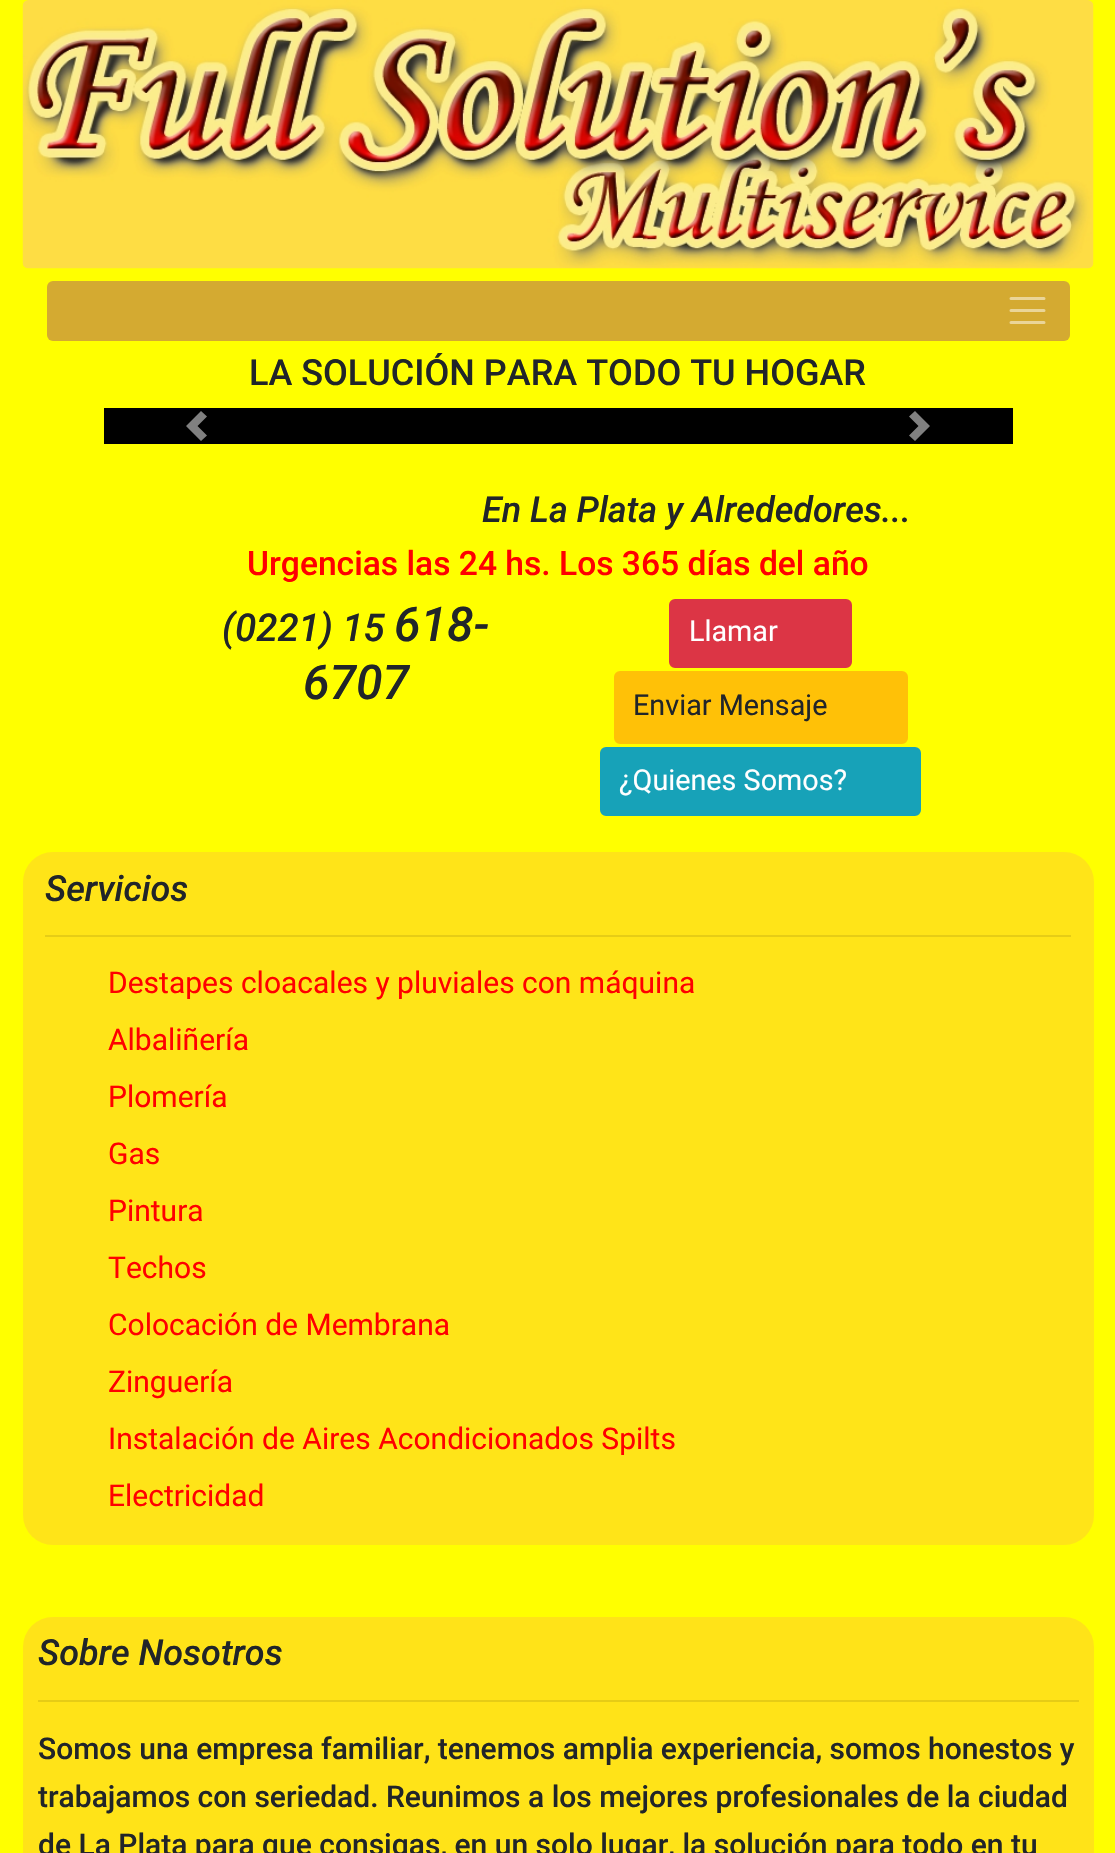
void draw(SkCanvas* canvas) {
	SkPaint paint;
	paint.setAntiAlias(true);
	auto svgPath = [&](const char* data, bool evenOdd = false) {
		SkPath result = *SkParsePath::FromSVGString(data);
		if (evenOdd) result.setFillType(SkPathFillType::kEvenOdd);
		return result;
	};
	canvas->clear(0xffffff00);
	canvas->drawImageRect(SkImages::DeferredFromEncodedData(SkData::MakeFromFileName("img1.png")), SkRect::MakeXYWH(22, 0, 1072, 269), SkSamplingOptions());
	SkFont f1(fontMgr->matchFamilyStyle("Roboto", SkFontStyle(500, SkFontStyle::kNormal_Width, SkFontStyle::kUpright_Slant)), 36);
	f1.setSubpixel(true);
	paint.setColor(0xff212529);
	canvas->drawString("LA SOLUCIÓN PARA TODO TU HOGAR", 249, 385, f1, paint);
	paint.setColor(0xffffff00);
	canvas->drawRect(SkRect::MakeXYWH(438, 352, 6, 1), paint);
	paint.setColor(0xffd4aa31);
	canvas->drawRoundRect(SkRect::MakeXYWH(47, 281, 1023, 60), 6, 6, paint);
	paint.setStroke(true);
	paint.setStrokeWidth(3);
	paint.setStrokeCap(SkPaint::kRound_Cap);
	paint.setColor(0xffead598);
	canvas->drawPath(svgPath("M1011 298.5H1044M1011 310.5H1044M1011 322.5H1044"), paint);
	paint.setStroke(false);
	paint.setColor(0xff000000);
	canvas->drawRect(SkRect::MakeXYWH(104, 408, 909, 36), paint);
	paint.setColor(0xff808080);
	canvas->drawPath(svgPath("M201 411L186 426L201 441L207 435.5L197.5 426L207 416.5Z"), paint);
	canvas->drawPath(svgPath("M915 411L909 416.5L918.5 426L909 435.5L915 441L930 426Z"), paint);
	SkFont f2(fontMgr->matchFamilyStyle("Roboto", SkFontStyle(500, SkFontStyle::kNormal_Width, SkFontStyle::kItalic_Slant)), 36);
	f2.setSubpixel(true);
	paint.setColor(0xff212529);
	canvas->drawString("En La Plata y Alrededores...", 482, 522, f2, paint);
	SkFont f3(fontMgr->matchFamilyStyle("Roboto", SkFontStyle(500, SkFontStyle::kNormal_Width, SkFontStyle::kUpright_Slant)), 33.6);
	f3.setSubpixel(true);
	paint.setColor(0xffff0000);
	canvas->drawString("Urgencias las 24 hs. Los 365 días del año", 247, 575, f3, paint);
	SkFont f4(fontMgr->matchFamilyStyle("Roboto", SkFontStyle(500, SkFontStyle::kNormal_Width, SkFontStyle::kItalic_Slant)), 38.5);
	f4.setSubpixel(true);
	paint.setColor(0xff212529);
	canvas->drawString("(0221) 15", 222, 641, f4, paint);
	SkFont f5(fontMgr->matchFamilyStyle("Roboto", SkFontStyle(500, SkFontStyle::kNormal_Width, SkFontStyle::kItalic_Slant)), 48);
	f5.setSubpixel(true);
	canvas->drawString("618-", 394, 641, f5, paint);
	canvas->drawString("6707", 303, 699, f5, paint);
	paint.setColor(0xffdc3545);
	canvas->drawRoundRect(SkRect::MakeXYWH(670, 600, 181, 67), 5, 5, paint);
	paint.setStroke(true);
	paint.setStrokeWidth(2);
	paint.setStrokeCap(SkPaint::kButt_Cap);
	canvas->drawRoundRect(SkRect::MakeXYWH(670, 600, 181, 67), 5, 5, paint);
	SkFont f6(fontMgr->matchFamilyStyle("Roboto", SkFontStyle::Normal()), 28.75);
	f6.setSubpixel(true);
	paint.setStroke(false);
	paint.setColor(0xffffffff);
	canvas->drawString("Llamar", 689, 641, f6, paint);
	paint.setColor(0xffffc107);
	canvas->drawRoundRect(SkRect::MakeXYWH(615, 672, 292, 71), 5, 5, paint);
	paint.setStroke(true);
	canvas->drawRoundRect(SkRect::MakeXYWH(615, 672, 292, 71), 5, 5, paint);
	paint.setStroke(false);
	paint.setColor(0xff212529);
	canvas->drawString("Enviar Mensaje", 633, 715, f6, paint);
	paint.setColor(0xff17a2b8);
	canvas->drawRoundRect(SkRect::MakeXYWH(601, 748, 319, 67), 5, 5, paint);
	paint.setStroke(true);
	canvas->drawRoundRect(SkRect::MakeXYWH(601, 748, 319, 67), 5, 5, paint);
	paint.setStroke(false);
	paint.setColor(0xffffffff);
	canvas->drawString("¿Quienes Somos?", 619, 790, f6, paint);
	paint.setColor(0xffffe418);
	canvas->drawRoundRect(SkRect::MakeXYWH(23, 852, 1071, 693), 30, 30, paint);
	paint.setColor(0xff212529);
	canvas->drawString("Servicios", 45, 901, f2, paint);
	paint.setColor(0xffe6cd16);
	canvas->drawRect(SkRect::MakeXYWH(45, 935, 1026, 2), paint);
	SkFont f7(fontMgr->matchFamilyStyle("Roboto", SkFontStyle::Normal()), 30);
	f7.setSubpixel(true);
	paint.setColor(0xffff0000);
	canvas->drawString("Destapes cloacales y pluviales con máquina", 108, 993, f7, paint);
	canvas->drawString("Albaliñería", 108, 1050, f7, paint);
	canvas->drawString("Plomería", 108, 1107, f7, paint);
	canvas->drawString("Gas", 108, 1164, f7, paint);
	canvas->drawString("Pintura", 108, 1221, f7, paint);
	canvas->drawString("Techos", 108, 1278, f7, paint);
	canvas->drawString("Colocación de Membrana", 108, 1335, f7, paint);
	canvas->drawString("Zinguería", 108, 1392, f7, paint);
	canvas->drawString("Instalación de Aires Acondicionados Spilts", 108, 1449, f7, paint);
	canvas->drawString("Electricidad", 108, 1506, f7, paint);
	paint.setColor(0xffffe318);
	canvas->drawRoundRect(SkRect::MakeXYWH(23, 1617, 1071, 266), 30, 30, paint);
	paint.setColor(0xff212529);
	canvas->drawString("Sobre Nosotros", 38, 1665, f2, paint);
	paint.setColor(0xffe6cc16);
	canvas->drawRect(SkRect::MakeXYWH(38, 1700, 1041, 2), paint);
	SkFont f8(fontMgr->matchFamilyStyle("Roboto", SkFontStyle(500, SkFontStyle::kNormal_Width, SkFontStyle::kUpright_Slant)), 30);
	f8.setSubpixel(true);
	paint.setColor(0xff212529);
	canvas->drawString("Somos una empresa familiar, tenemos amplia experiencia, somos honestos y", 38, 1759, f8, paint);
	canvas->drawString("trabajamos con seriedad. Reunimos a los mejores profesionales de la ciudad", 38, 1807, f8, paint);
	canvas->drawString("de La Plata para que consigas, en un solo lugar, la solución para todo en tu", 38, 1855, f8, paint);
}
